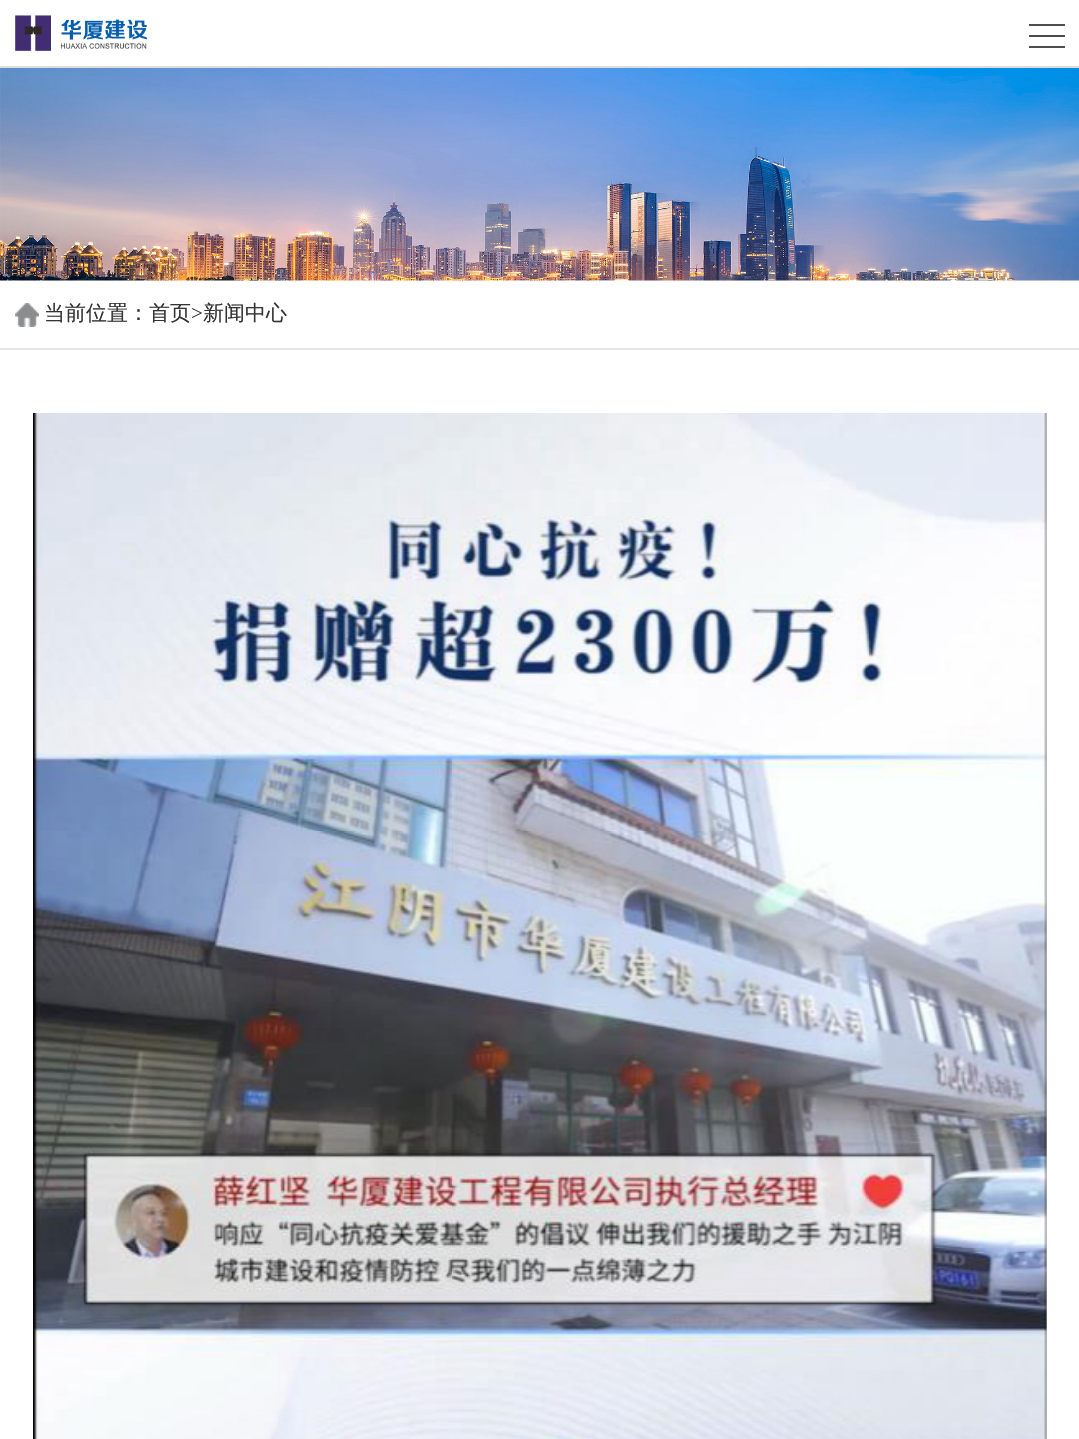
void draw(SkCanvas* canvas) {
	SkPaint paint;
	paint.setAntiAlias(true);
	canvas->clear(0xffffffff);
	paint.setColor(0xffdddddd);
	canvas->drawRect(SkRect::MakeXYWH(0, 66, 1079, 2), paint);
	canvas->drawImageRect(SkImages::DeferredFromEncodedData(SkData::MakeFromFileName("img1.png")), SkRect::MakeXYWH(15, 15, 132, 36), SkSamplingOptions());
	canvas->drawImageRect(SkImages::DeferredFromEncodedData(SkData::MakeFromFileName("img2.png")), SkRect::MakeXYWH(1029, 24, 36, 24), SkSamplingOptions());
	canvas->drawImageRect(SkImages::DeferredFromEncodedData(SkData::MakeFromFileName("img3.png")), SkRect::MakeXYWH(0, 68, 1079, 213), SkSamplingOptions());
	paint.setColor(0xffe5e5e5);
	canvas->drawRect(SkRect::MakeXYWH(0, 348, 1079, 2), paint);
	canvas->drawImageRect(SkImages::DeferredFromEncodedData(SkData::MakeFromFileName("img4.png")), SkRect::MakeXYWH(15, 303, 24, 24), SkSamplingOptions());
	SkFont f1(fontMgr->matchFamilyStyle("WenQuanYi Zen Hei", SkFontStyle(500, SkFontStyle::kNormal_Width, SkFontStyle::kUpright_Slant)), 21);
	f1.setSubpixel(true);
	paint.setColor(0xff333333);
	canvas->drawString("当前位置：首页", 44, 320, f1, paint);
	SkFont f2(fontMgr->matchFamilyStyle("Liberation Serif", SkFontStyle::Normal()), 21);
	f2.setSubpixel(true);
	canvas->drawString(">", 191, 320, f2, paint);
	canvas->drawString("新闻中心", 203, 320, f1, paint);
	canvas->drawImageRect(SkImages::DeferredFromEncodedData(SkData::MakeFromFileName("img5.png")), SkRect::MakeXYWH(33, 413, 1014, 1026), SkSamplingOptions());
}
